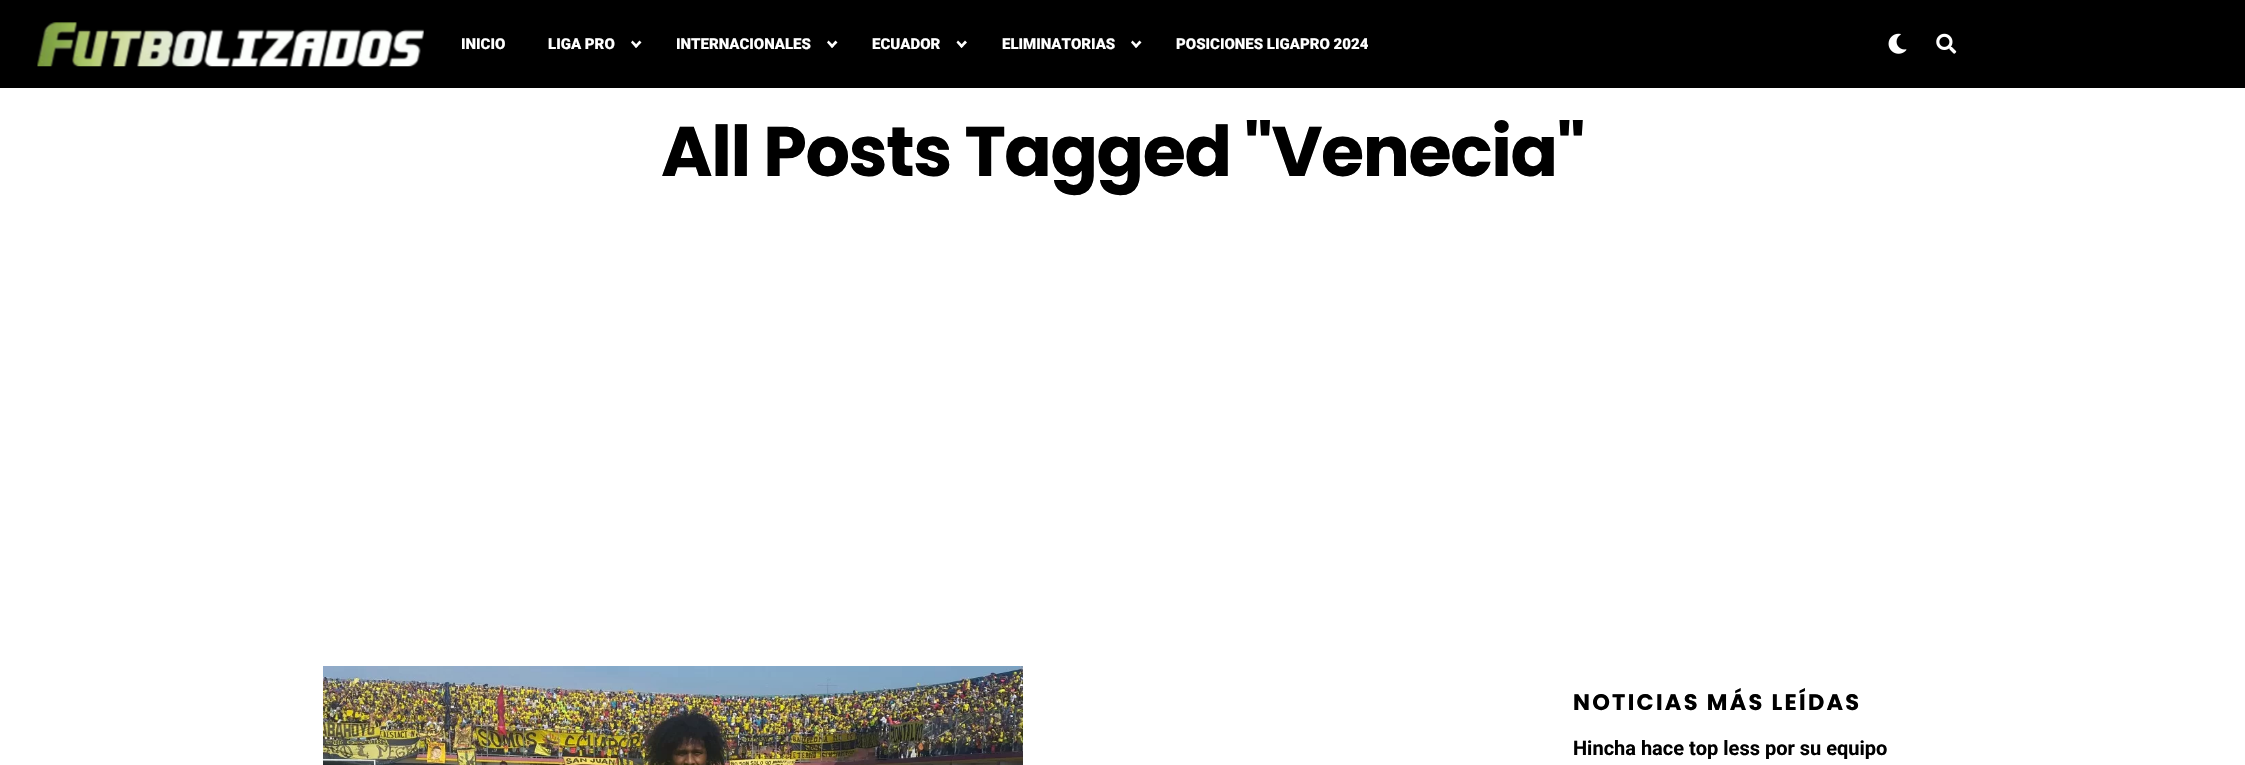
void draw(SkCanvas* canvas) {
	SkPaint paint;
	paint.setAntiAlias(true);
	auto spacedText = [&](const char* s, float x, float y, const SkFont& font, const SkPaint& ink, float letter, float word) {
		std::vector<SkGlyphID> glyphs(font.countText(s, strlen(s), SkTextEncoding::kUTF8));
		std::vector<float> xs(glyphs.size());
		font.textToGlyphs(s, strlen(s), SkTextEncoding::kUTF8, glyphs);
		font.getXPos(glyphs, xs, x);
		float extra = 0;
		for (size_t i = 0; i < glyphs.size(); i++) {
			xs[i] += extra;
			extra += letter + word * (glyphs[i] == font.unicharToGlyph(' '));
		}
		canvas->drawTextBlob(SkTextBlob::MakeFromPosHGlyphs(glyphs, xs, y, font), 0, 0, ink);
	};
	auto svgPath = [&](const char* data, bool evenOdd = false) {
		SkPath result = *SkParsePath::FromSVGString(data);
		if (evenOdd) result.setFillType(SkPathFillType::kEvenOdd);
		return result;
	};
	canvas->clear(0xffffffff);
	paint.setColor(0xff000000);
	canvas->drawRect(SkRect::MakeXYWH(0, 0, 2245, 88), paint);
	canvas->drawImageRect(SkImages::DeferredFromEncodedData(SkData::MakeFromFileName("img1.png")), SkRect::MakeXYWH(37, 22, 387, 45), SkSamplingOptions());
	SkFont f1(fontMgr->matchFamilyStyle("Roboto", SkFontStyle(900, SkFontStyle::kNormal_Width, SkFontStyle::kUpright_Slant)), 15);
	f1.setSubpixel(true);
	paint.setColor(0xffffffff);
	canvas->drawString("INICIO", 461, 49, f1, paint);
	canvas->drawString("LIGA PRO", 548, 49, f1, paint);
	canvas->drawPath(svgPath("M639.5 40.5L641.5 42.5L636 48L634.5 46Z"), paint);
	canvas->drawPath(svgPath("M632.5 40.5L638 46L636 48L631 42.5Z"), paint);
	canvas->drawString("INTERNACIONALES", 676, 49, f1, paint);
	canvas->drawPath(svgPath("M835.5 40.5L837.5 42.5L832 48L830.5 46Z"), paint);
	canvas->drawPath(svgPath("M828.5 40.5L834 46L832 48L827 42.5Z"), paint);
	canvas->drawString("ECUADOR", 872, 49, f1, paint);
	canvas->drawPath(svgPath("M965 40.5L967 42.5L961.5 48L960 46Z"), paint);
	canvas->drawPath(svgPath("M958 40.5L963.5 46L961.5 48L956.5 42.5Z"), paint);
	canvas->drawString("ELIMINATORIAS", 1002, 49, f1, paint);
	canvas->drawPath(svgPath("M1139.5 40.5L1141.5 42.5L1136 48L1134.5 46Z"), paint);
	canvas->drawPath(svgPath("M1132.5 40.5L1138 46L1136 48L1131 42.5Z"), paint);
	canvas->drawString("POSICIONES LIGAPRO 2024", 1176, 49, f1, paint);
	canvas->drawImageRect(SkImages::DeferredFromEncodedData(SkData::MakeFromFileName("img2.png")), SkRect::MakeXYWH(1888, 33, 19, 21), SkSamplingOptions());
	canvas->drawImageRect(SkImages::DeferredFromEncodedData(SkData::MakeFromFileName("img3.png")), SkRect::MakeXYWH(1936, 33, 21, 21), SkSamplingOptions());
	SkFont f2(fontMgr->matchFamilyStyle("Poppins", SkFontStyle::Bold()), 70);
	f2.setSubpixel(true);
	paint.setColor(0xff000000);
	spacedText("All Posts Tagged \"Venecia\"", 661, 176, f2, paint, -1.4, 0);
	canvas->drawImageRect(SkImages::DeferredFromEncodedData(SkData::MakeFromFileName("img4.png")), SkRect::MakeXYWH(323, 666, 700, 99), SkSamplingOptions());
	SkFont f3(fontMgr->matchFamilyStyle("Poppins", SkFontStyle::Bold()), 22.5);
	f3.setSubpixel(true);
	spacedText("NOTICIAS MÁS LEÍDAS", 1573, 710, f3, paint, 2.25, 0);
	SkFont f4(fontMgr->matchFamilyStyle("Roboto", SkFontStyle::Bold()), 20);
	f4.setSubpixel(true);
	canvas->drawString("Hincha hace top less por su equipo", 1573, 755, f4, paint);
}
